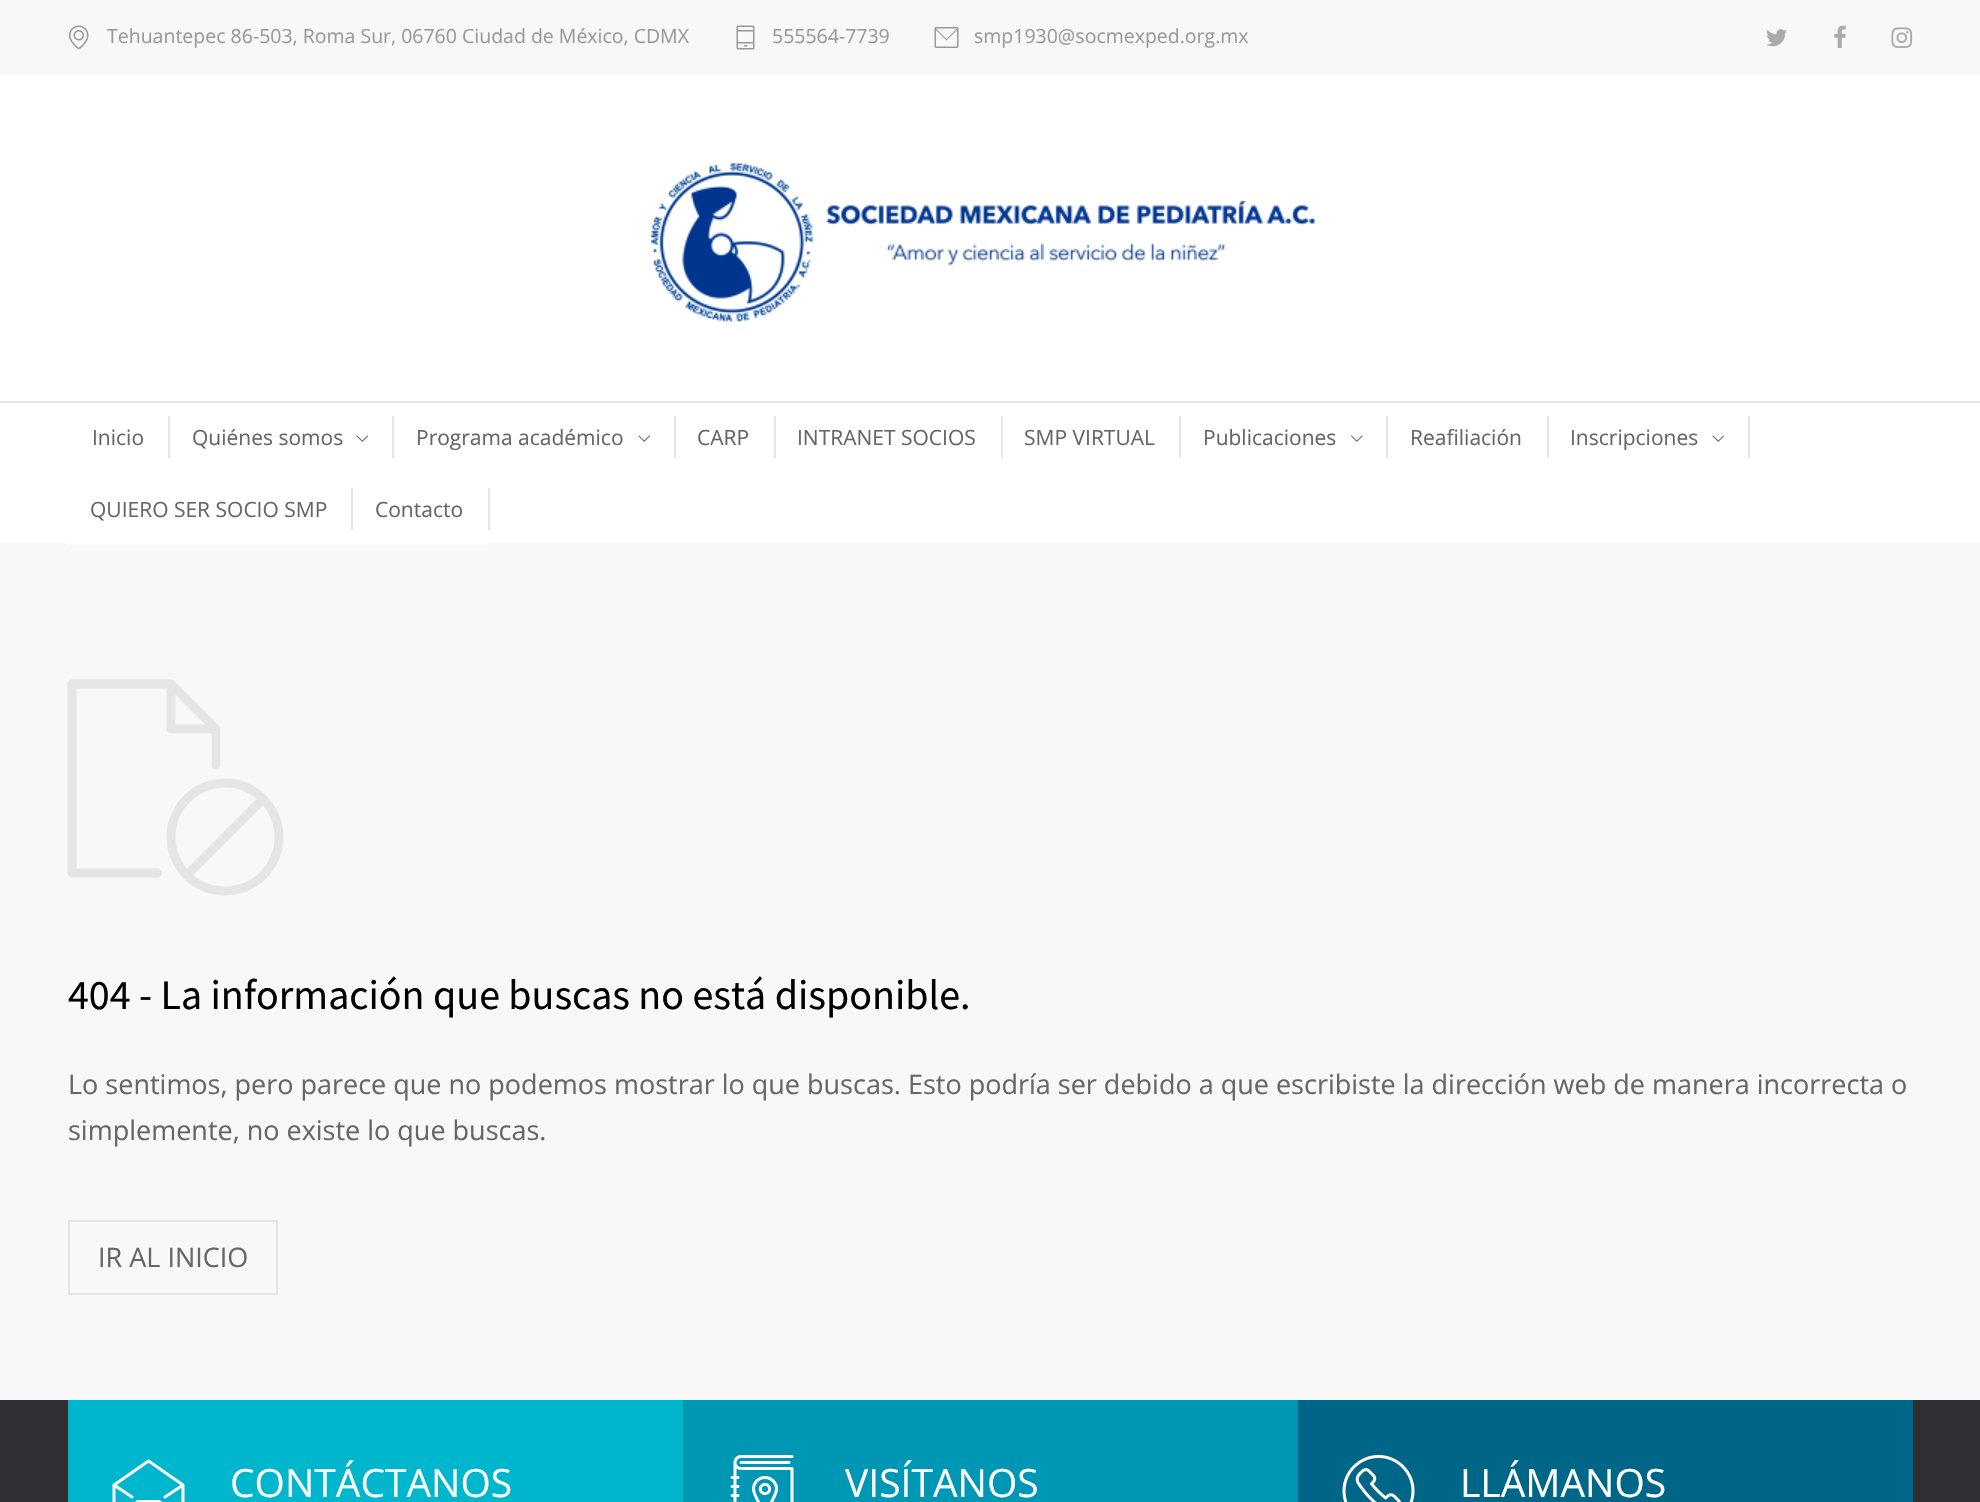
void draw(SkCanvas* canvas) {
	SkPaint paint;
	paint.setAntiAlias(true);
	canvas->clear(0xfff8f8f8);
	canvas->drawImageRect(SkImages::DeferredFromEncodedData(SkData::MakeFromFileName("img1.png")), SkRect::MakeXYWH(69, 25, 20, 25), SkSamplingOptions());
	SkFont f1(fontMgr->matchFamilyStyle("Open Sans", SkFontStyle::Normal()), 19.5);
	f1.setSubpixel(true);
	paint.setColor(0xff999999);
	canvas->drawString("Tehuantepec 86-503, Roma Sur, 06760 Ciudad de México, CDMX", 107, 43, f1, paint);
	canvas->drawImageRect(SkImages::DeferredFromEncodedData(SkData::MakeFromFileName("img2.png")), SkRect::MakeXYWH(736, 25, 19, 25), SkSamplingOptions());
	canvas->drawString("555564-7739", 772, 43, f1, paint);
	canvas->drawImageRect(SkImages::DeferredFromEncodedData(SkData::MakeFromFileName("img3.png")), SkRect::MakeXYWH(934, 27, 25, 21), SkSamplingOptions());
	canvas->drawString("smp1930@socmexped.org.mx", 974, 43, f1, paint);
	canvas->drawImageRect(SkImages::DeferredFromEncodedData(SkData::MakeFromFileName("img4.png")), SkRect::MakeXYWH(1766, 29, 21, 18), SkSamplingOptions());
	canvas->drawImageRect(SkImages::DeferredFromEncodedData(SkData::MakeFromFileName("img5.png")), SkRect::MakeXYWH(1834, 25, 12, 23), SkSamplingOptions());
	canvas->drawImageRect(SkImages::DeferredFromEncodedData(SkData::MakeFromFileName("img6.png")), SkRect::MakeXYWH(1891, 27, 22, 21), SkSamplingOptions());
	paint.setColor(0xffffffff);
	canvas->drawRect(SkRect::MakeXYWH(0, 75, 1980, 326), paint);
	canvas->drawImageRect(SkImages::DeferredFromEncodedData(SkData::MakeFromFileName("img7.png")), SkRect::MakeXYWH(650, 162, 666, 161), SkSamplingOptions());
	paint.setColor(0xffe5e5e5);
	canvas->drawRect(SkRect::MakeXYWH(0, 401, 1980, 2), paint);
	paint.setColor(0xffffffff);
	canvas->drawRect(SkRect::MakeXYWH(0, 403, 1980, 140), paint);
	SkFont f2(fontMgr->matchFamilyStyle("Open Sans", SkFontStyle::Normal()), 21);
	f2.setSubpixel(true);
	paint.setColor(0xff666666);
	canvas->drawString("Inicio", 92, 445, f2, paint);
	paint.setColor(0xffe5e5e5);
	canvas->drawRect(SkRect::MakeXYWH(168, 416, 2, 42), paint);
	paint.setColor(0xff666666);
	canvas->drawString("Quiénes somos", 192, 445, f2, paint);
	canvas->drawImageRect(SkImages::DeferredFromEncodedData(SkData::MakeFromFileName("img8.png")), SkRect::MakeXYWH(356, 435, 13, 7), SkSamplingOptions());
	paint.setColor(0xffe5e5e5);
	canvas->drawRect(SkRect::MakeXYWH(392, 416, 2, 42), paint);
	paint.setColor(0xff666666);
	canvas->drawString("Programa académico", 416, 445, f2, paint);
	canvas->drawImageRect(SkImages::DeferredFromEncodedData(SkData::MakeFromFileName("img8.png")), SkRect::MakeXYWH(638, 435, 13, 7), SkSamplingOptions());
	paint.setColor(0xffe5e5e5);
	canvas->drawRect(SkRect::MakeXYWH(674, 416, 2, 42), paint);
	paint.setColor(0xff666666);
	canvas->drawString("CARP", 697, 445, f2, paint);
	paint.setColor(0xffe5e5e5);
	canvas->drawRect(SkRect::MakeXYWH(774, 416, 2, 42), paint);
	paint.setColor(0xff666666);
	canvas->drawString("INTRANET SOCIOS", 797, 445, f2, paint);
	paint.setColor(0xffe5e5e5);
	canvas->drawRect(SkRect::MakeXYWH(1001, 416, 2, 42), paint);
	paint.setColor(0xff666666);
	canvas->drawString("SMP VIRTUAL", 1024, 445, f2, paint);
	paint.setColor(0xffe5e5e5);
	canvas->drawRect(SkRect::MakeXYWH(1179, 416, 2, 42), paint);
	paint.setColor(0xff666666);
	canvas->drawString("Publicaciones", 1203, 445, f2, paint);
	canvas->drawImageRect(SkImages::DeferredFromEncodedData(SkData::MakeFromFileName("img9.png")), SkRect::MakeXYWH(1351, 435, 12, 7), SkSamplingOptions());
	paint.setColor(0xffe5e5e5);
	canvas->drawRect(SkRect::MakeXYWH(1386, 416, 2, 42), paint);
	paint.setColor(0xff666666);
	canvas->drawString("Reafiliación", 1410, 445, f2, paint);
	paint.setColor(0xffe5e5e5);
	canvas->drawRect(SkRect::MakeXYWH(1547, 416, 2, 42), paint);
	paint.setColor(0xff666666);
	canvas->drawString("Inscripciones", 1570, 445, f2, paint);
	canvas->drawImageRect(SkImages::DeferredFromEncodedData(SkData::MakeFromFileName("img8.png")), SkRect::MakeXYWH(1712, 435, 13, 7), SkSamplingOptions());
	paint.setColor(0xffe5e5e5);
	canvas->drawRect(SkRect::MakeXYWH(1748, 416, 2, 42), paint);
	paint.setColor(0xffffffff);
	canvas->drawRect(SkRect::MakeXYWH(66, 543, 423, 2), paint);
	paint.setColor(0xff666666);
	canvas->drawString("QUIERO SER SOCIO SMP", 90, 517, f2, paint);
	paint.setColor(0xffe5e5e5);
	canvas->drawRect(SkRect::MakeXYWH(351, 488, 2, 42), paint);
	paint.setColor(0xff666666);
	canvas->drawString("Contacto", 375, 517, f2, paint);
	paint.setColor(0xffe5e5e5);
	canvas->drawRect(SkRect::MakeXYWH(488, 488, 2, 42), paint);
	canvas->drawImageRect(SkImages::DeferredFromEncodedData(SkData::MakeFromFileName("img10.png")), SkRect::MakeXYWH(67, 679, 217, 217), SkSamplingOptions());
	SkFont f3(fontMgr->matchFamilyStyle("Source Sans Pro", SkFontStyle::Normal()), 42);
	f3.setSubpixel(true);
	paint.setColor(0xff000000);
	canvas->drawString("404 - La información que buscas no está disponible.", 68, 1009, f3, paint);
	SkFont f4(fontMgr->matchFamilyStyle("Open Sans", SkFontStyle::Normal()), 27);
	f4.setSubpixel(true);
	paint.setColor(0xff666666);
	canvas->drawString("Lo sentimos, pero parece que no podemos mostrar lo que buscas. Esto podría ser debido a que escribiste la dirección web de manera incorrecta o", 68, 1094, f4, paint);
	canvas->drawString("simplemente, no existe lo que buscas.", 68, 1140, f4, paint);
	paint.setStroke(true);
	paint.setStrokeWidth(2);
	paint.setColor(0xffe5e5e5);
	canvas->drawRect(SkRect::MakeXYWH(69, 1221, 208, 73), paint);
	paint.setStroke(false);
	paint.setColor(0xff666666);
	canvas->drawString("IR AL INICIO", 98, 1267, f4, paint);
	paint.setColor(0xff2e3033);
	canvas->drawRect(SkRect::MakeXYWH(0, 1400, 1980, 102), paint);
	paint.setColor(0xff00b6cc);
	canvas->drawRect(SkRect::MakeXYWH(68, 1400, 615, 102), paint);
	canvas->drawImageRect(SkImages::DeferredFromEncodedData(SkData::MakeFromFileName("img11.png")), SkRect::MakeXYWH(112, 1459, 73, 43), SkSamplingOptions());
	SkFont f5(fontMgr->matchFamilyStyle("Open Sans", SkFontStyle::Normal()), 39);
	f5.setSubpixel(true);
	paint.setColor(0xffffffff);
	canvas->drawString("CONTÁCTANOS", 230, 1497, f5, paint);
	paint.setColor(0xff0097b5);
	canvas->drawRect(SkRect::MakeXYWH(683, 1400, 615, 102), paint);
	canvas->drawImageRect(SkImages::DeferredFromEncodedData(SkData::MakeFromFileName("img12.png")), SkRect::MakeXYWH(730, 1455, 64, 47), SkSamplingOptions());
	paint.setColor(0xffffffff);
	canvas->drawString("VISÍTANOS", 845, 1497, f5, paint);
	paint.setColor(0xff006688);
	canvas->drawRect(SkRect::MakeXYWH(1298, 1400, 615, 102), paint);
	canvas->drawImageRect(SkImages::DeferredFromEncodedData(SkData::MakeFromFileName("img13.png")), SkRect::MakeXYWH(1342, 1455, 73, 47), SkSamplingOptions());
	paint.setColor(0xffffffff);
	canvas->drawString("LLÁMANOS", 1460, 1497, f5, paint);
}
